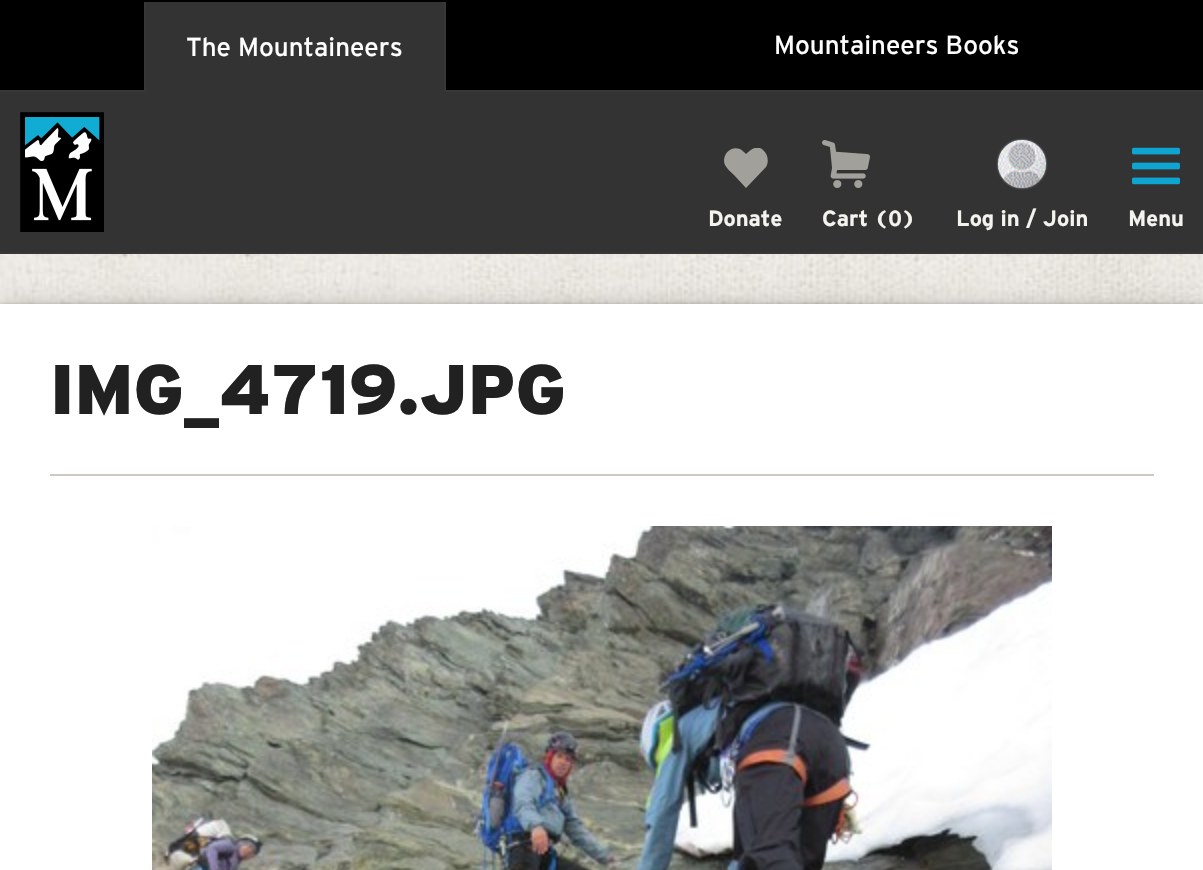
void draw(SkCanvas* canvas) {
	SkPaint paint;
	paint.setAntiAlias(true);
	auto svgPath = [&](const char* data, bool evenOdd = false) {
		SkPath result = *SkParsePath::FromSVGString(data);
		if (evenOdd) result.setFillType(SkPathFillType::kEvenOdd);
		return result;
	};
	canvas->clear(0xffffffff);
	canvas->drawImageRect(SkImages::DeferredFromEncodedData(SkData::MakeFromFileName("img1.png")), SkRect::MakeXYWH(0, 254, 1203, 50), SkSamplingOptions());
	paint.setColor(0xff000000);
	canvas->drawRect(SkRect::MakeXYWH(0, 0, 1203, 90), paint);
	paint.setColor(0xff383736);
	canvas->drawRect(SkRect::MakeXYWH(0, 90, 1203, 2), paint);
	paint.setColor(0xff333333);
	canvas->drawRect(SkRect::MakeXYWH(146, 2, 298, 90), paint);
	paint.setColor(0xff383736);
	canvas->drawRect(SkRect::MakeXYWH(444, 2, 2, 90), paint);
	canvas->drawRect(SkRect::MakeXYWH(144, 2, 2, 90), paint);
	SkFont f1(fontMgr->matchFamilyStyle("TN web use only", SkFontStyle::Normal()), 26);
	f1.setSubpixel(true);
	paint.setColor(0xffffffff);
	canvas->drawString("The Mountaineers", 186, 56, f1, paint);
	canvas->drawString("Mountaineers Books", 774, 54, f1, paint);
	paint.setColor(0xff333333);
	canvas->drawRect(SkRect::MakeXYWH(0, 92, 1203, 160), paint);
	paint.setColor(0xff383736);
	canvas->drawRect(SkRect::MakeXYWH(0, 252, 1203, 2), paint);
	canvas->drawImageRect(SkImages::DeferredFromEncodedData(SkData::MakeFromFileName("img2.png")), SkRect::MakeXYWH(20, 112, 84, 120), SkSamplingOptions());
	canvas->save();
	canvas->clipRect(SkRect::MakeXYWH(724, 148, 44, 40));
	paint.setColor(0xffa2a09b);
	canvas->drawPath(svgPath("M764 151C768 155 769 162 766 167L746 188L734 175C731 172 727 169 725 165C721 156 730 145 740 149C742 150 744 152 746 154C751 149 758 144 764 151Z"), paint);
	canvas->restore();
	SkFont f2(fontMgr->matchFamilyStyle("TN web use only", SkFontStyle::Bold()), 22);
	f2.setSubpixel(true);
	paint.setColor(0xfff4f3ef);
	canvas->drawString("Donate", 708, 226, f2, paint);
	canvas->drawImageRect(SkImages::DeferredFromEncodedData(SkData::MakeFromFileName("img3.png")), SkRect::MakeXYWH(822, 140, 48, 48), SkSamplingOptions());
	canvas->drawString("Cart (0)", 822, 226, f2, paint);
	paint.setColor(0xffcccccc);
	paint.setMaskFilter(SkMaskFilter::MakeBlur(kNormal_SkBlurStyle, 1));
	canvas->drawRoundRect(SkRect::MakeXYWH(998, 140, 48, 48), 24, 24, paint);
	paint.setMaskFilter(nullptr);
	canvas->drawImageRect(SkImages::DeferredFromEncodedData(SkData::MakeFromFileName("img4.png")), SkRect::MakeXYWH(998, 140, 48, 48), SkSamplingOptions());
	paint.setColor(0xfff4f3ef);
	canvas->drawString("Log in / Join", 956, 226, f2, paint);
	canvas->drawImageRect(SkImages::DeferredFromEncodedData(SkData::MakeFromFileName("img5.png")), SkRect::MakeXYWH(1132, 147, 48, 38), SkSamplingOptions());
	canvas->drawString("Menu", 1128, 226, f2, paint);
	paint.setColor(0x33000000);
	paint.setMaskFilter(SkMaskFilter::MakeBlur(kNormal_SkBlurStyle, 12));
	canvas->drawRect(SkRect::MakeXYWH(0, 306, 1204, 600), paint);
	paint.setMaskFilter(nullptr);
	paint.setMaskFilter(SkMaskFilter::MakeBlur(kNormal_SkBlurStyle, 2));
	canvas->drawRect(SkRect::MakeXYWH(0, 304, 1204, 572), paint);
	paint.setMaskFilter(nullptr);
	paint.setColor(0xffffffff);
	canvas->drawRect(SkRect::MakeXYWH(0, 304, 1203, 566), paint);
	paint.setColor(0xffccc9c2);
	canvas->drawRect(SkRect::MakeXYWH(50, 474, 1104, 2), paint);
	SkFont f3(fontMgr->matchFamilyStyle("TN web use only", SkFontStyle(900, SkFontStyle::kNormal_Width, SkFontStyle::kUpright_Slant)), 70);
	f3.setSubpixel(true);
	paint.setColor(0xff212121);
	canvas->drawString("IMG_4719.JPG", 50, 414, f3, paint);
	canvas->drawImageRect(SkImages::DeferredFromEncodedData(SkData::MakeFromFileName("img6.png")), SkRect::MakeXYWH(152, 526, 900, 344), SkSamplingOptions());
}
